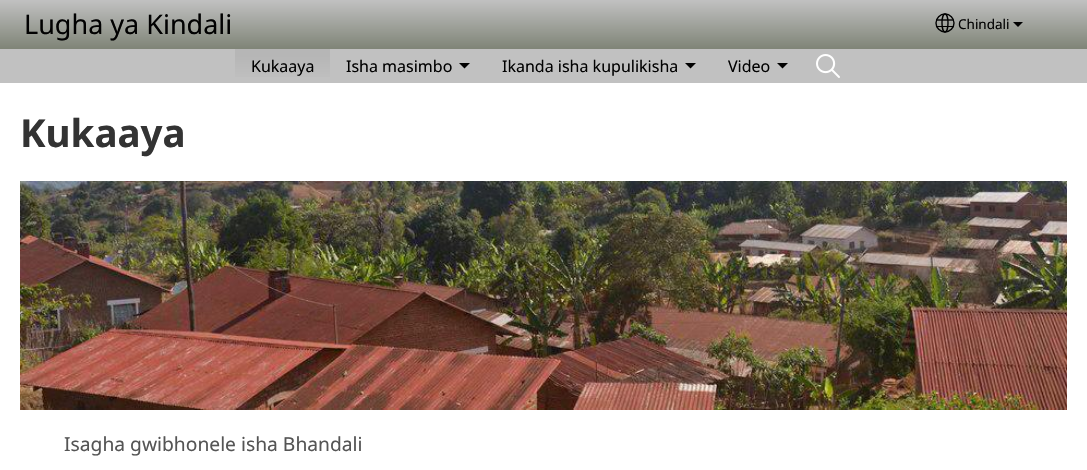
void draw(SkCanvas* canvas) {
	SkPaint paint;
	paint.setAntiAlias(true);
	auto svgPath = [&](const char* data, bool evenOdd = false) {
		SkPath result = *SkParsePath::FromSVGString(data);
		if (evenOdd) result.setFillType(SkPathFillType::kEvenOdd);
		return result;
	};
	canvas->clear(0xffffffff);
	{
		const SkColor colors[] = {0xffc1c1c1, 0xff7f8477};
		const float stops[] = {0, 1};
		const SkPoint ends[] = {{544, 0}, {544, 49}};
		paint.setShader(SkGradientShader::MakeLinear(ends, colors, stops, 2, SkTileMode::kClamp));
		paint.setAlpha(255);
	}
	canvas->drawRect(SkRect::MakeXYWH(0, 0, 1087, 49), paint);
	SkFont f1(fontMgr->matchFamilyStyle("Noto Sans", SkFontStyle::Normal()), 27);
	f1.setSubpixel(true);
	paint.setShader(nullptr);
	paint.setColor(0xff010101);
	canvas->drawString("Lugha ya Kindali", 24, 34, f1, paint);
	paint.setStroke(true);
	paint.setStrokeWidth(1.4);
	canvas->drawCircle(945, 23, 9, paint);
	canvas->drawOval(SkRect::MakeXYWH(942, 14, 6, 18), paint);
	canvas->drawPath(svgPath("M936 20H953.5"), paint);
	paint.setStroke(false);
	canvas->drawRect(SkRect::MakeXYWH(936, 26, 18, 1), paint);
	SkFont f2(fontMgr->matchFamilyStyle("Noto Sans", SkFontStyle::Normal()), 13.5);
	f2.setSubpixel(true);
	canvas->drawString("Chindali", 958, 29, f2, paint);
	canvas->drawPath(svgPath("M1013 22H1023L1018 27Z"), paint);
	paint.setColor(0xffc1c1c1);
	canvas->drawRect(SkRect::MakeXYWH(0, 49, 1087, 34), paint);
	{
		const SkColor colors[] = {0xffb6b6b6, 0xffc1c1c1};
		const float stops[] = {0.2, 1};
		const SkPoint ends[] = {{283, 49}, {283, 83}};
		paint.setShader(SkGradientShader::MakeLinear(ends, colors, stops, 2, SkTileMode::kClamp));
		paint.setAlpha(255);
	}
	canvas->drawRect(SkRect::MakeXYWH(235, 49, 95, 28), paint);
	SkFont f3(fontMgr->matchFamilyStyle("Noto Sans", SkFontStyle::Normal()), 16);
	f3.setSubpixel(true);
	paint.setShader(nullptr);
	paint.setColor(0xff010101);
	canvas->drawString("Kukaaya", 251, 72, f3, paint);
	canvas->drawString("Isha masimbo", 346, 72, f3, paint);
	canvas->drawPath(svgPath("M459 63H470L464.5 68.5Z"), paint);
	canvas->drawString("Ikanda isha kupulikisha", 502, 72, f3, paint);
	canvas->drawPath(svgPath("M685 63H696L690.5 68.5Z"), paint);
	canvas->drawString("Video", 728, 72, f3, paint);
	canvas->drawPath(svgPath("M777 63H788L782.5 68.5Z"), paint);
	canvas->drawImageRect(SkImages::DeferredFromEncodedData(SkData::MakeFromFileName("img1.png")), SkRect::MakeXYWH(816, 54, 24, 24), SkSamplingOptions());
	SkFont f4(fontMgr->matchFamilyStyle("Noto Sans", SkFontStyle::Bold()), 38.5);
	f4.setSubpixel(true);
	paint.setColor(0xff333333);
	canvas->drawString("Kukaaya", 20, 147, f4, paint);
	canvas->drawImageRect(SkImages::DeferredFromEncodedData(SkData::MakeFromFileName("img2.png")), SkRect::MakeXYWH(20, 181, 1047, 229), SkSamplingOptions());
	SkFont f5(fontMgr->matchFamilyStyle("Noto Sans", SkFontStyle::Normal()), 19.25);
	f5.setSubpixel(true);
	paint.setColor(0xff555555);
	canvas->drawString("Isagha gwibhonele isha Bhandali", 64, 451, f5, paint);
}
